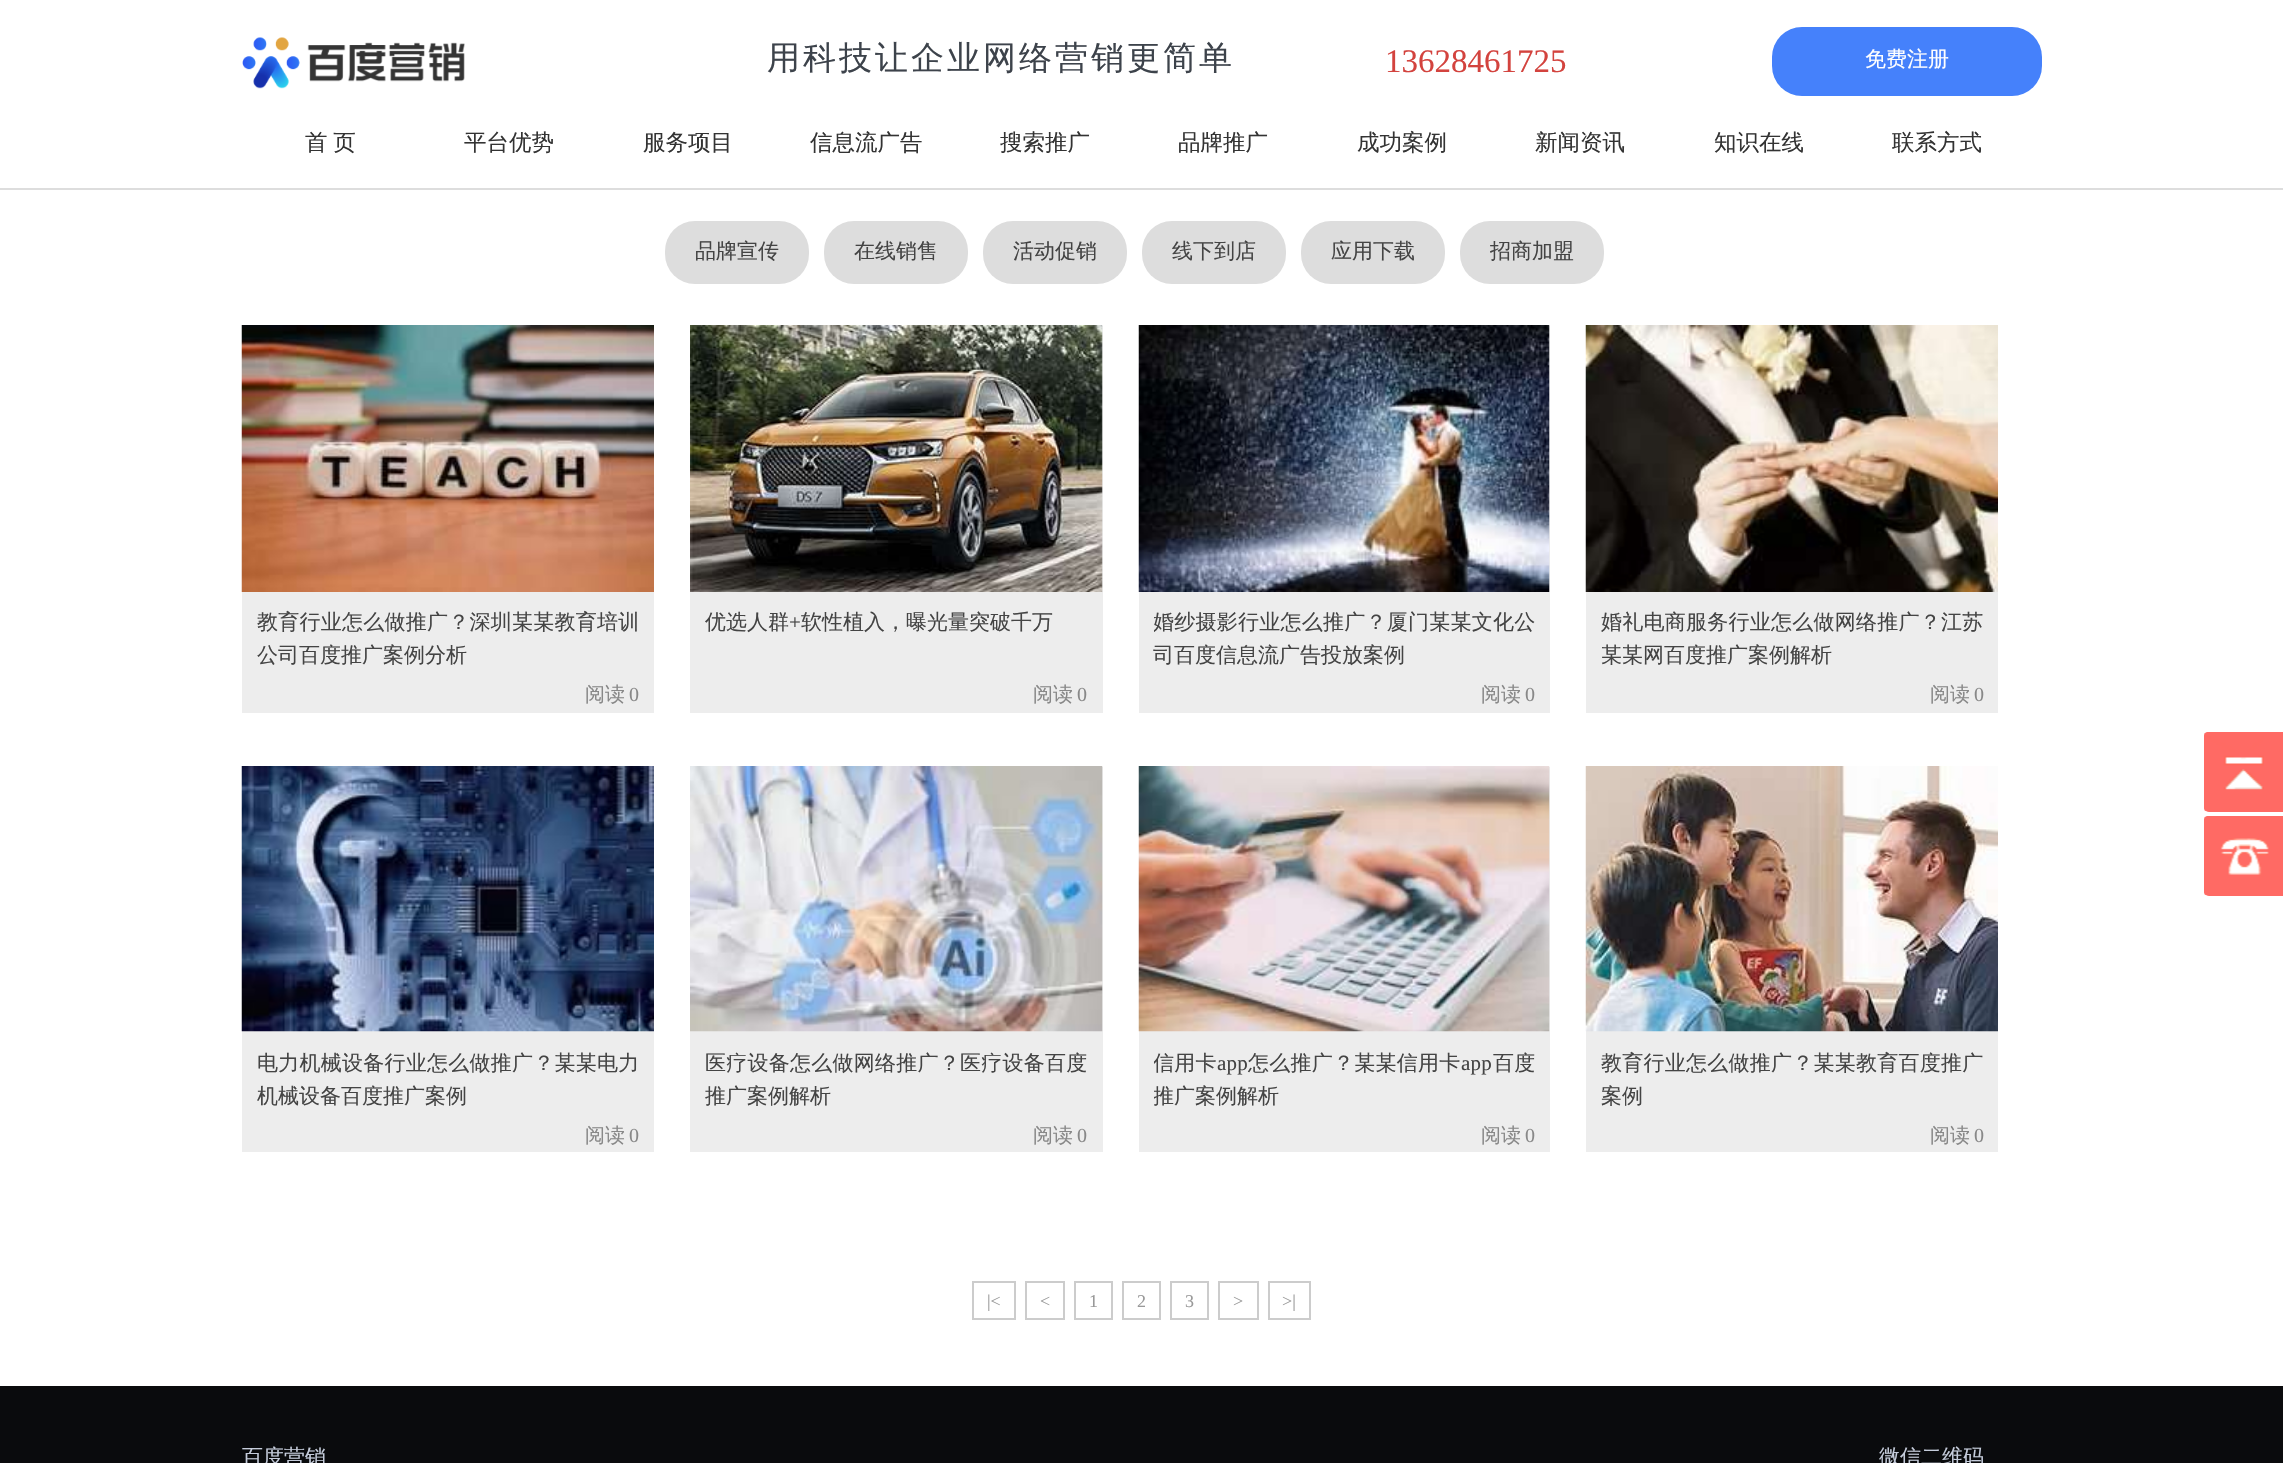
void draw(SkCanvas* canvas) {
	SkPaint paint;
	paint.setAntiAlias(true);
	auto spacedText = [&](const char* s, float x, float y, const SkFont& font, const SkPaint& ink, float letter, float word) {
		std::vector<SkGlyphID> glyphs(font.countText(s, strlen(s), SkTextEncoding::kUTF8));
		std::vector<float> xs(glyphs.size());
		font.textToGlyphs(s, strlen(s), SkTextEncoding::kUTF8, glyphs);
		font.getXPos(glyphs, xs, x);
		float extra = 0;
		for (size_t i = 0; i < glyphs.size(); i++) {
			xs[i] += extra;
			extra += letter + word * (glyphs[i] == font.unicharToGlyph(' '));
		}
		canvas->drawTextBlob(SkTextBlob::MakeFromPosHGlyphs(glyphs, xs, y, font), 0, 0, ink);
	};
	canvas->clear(0xffffffff);
	paint.setColor(0xffdddddd);
	canvas->drawRect(SkRect::MakeXYWH(0, 188, 2283, 2), paint);
	canvas->drawImageRect(SkImages::DeferredFromEncodedData(SkData::MakeFromFileName("img1.png")), SkRect::MakeXYWH(242, 37, 223, 52), SkSamplingOptions());
	SkFont f1(fontMgr->matchFamilyStyle("WenQuanYi Zen Hei", SkFontStyle(500, SkFontStyle::kNormal_Width, SkFontStyle::kUpright_Slant)), 33);
	f1.setSubpixel(true);
	paint.setColor(0xff3d434b);
	spacedText("用科技让企业网络营销更简单", 767, 69, f1, paint, 3, 0);
	SkFont f2(fontMgr->matchFamilyStyle("Liberation Serif", SkFontStyle::Normal()), 33);
	f2.setSubpixel(true);
	paint.setColor(0xffd3433e);
	canvas->drawString("13628461725", 1385, 72, f2, paint);
	paint.setColor(0xff4581fb);
	canvas->drawRoundRect(SkRect::MakeXYWH(1772, 27, 270, 69), 30, 30, paint);
	SkFont f3(fontMgr->matchFamilyStyle("WenQuanYi Zen Hei", SkFontStyle(500, SkFontStyle::kNormal_Width, SkFontStyle::kUpright_Slant)), 21);
	f3.setSubpixel(true);
	paint.setColor(0xffffffff);
	canvas->drawString("免费注册", 1865, 66, f3, paint);
	SkFont f4(fontMgr->matchFamilyStyle("WenQuanYi Zen Hei", SkFontStyle(500, SkFontStyle::kNormal_Width, SkFontStyle::kUpright_Slant)), 22.5);
	f4.setSubpixel(true);
	paint.setColor(0xff333333);
	spacedText("首 页", 305, 150, f4, paint, 0, -1);
	canvas->drawString("平台优势", 464, 150, f4, paint);
	canvas->drawString("服务项目", 643, 150, f4, paint);
	canvas->drawString("信息流广告", 810, 150, f4, paint);
	canvas->drawString("搜索推广", 1000, 150, f4, paint);
	canvas->drawString("品牌推广", 1178, 150, f4, paint);
	canvas->drawString("成功案例", 1357, 150, f4, paint);
	canvas->drawString("新闻资讯", 1535, 150, f4, paint);
	canvas->drawString("知识在线", 1714, 150, f4, paint);
	canvas->drawString("联系方式", 1892, 150, f4, paint);
	paint.setColor(0xffdddddd);
	canvas->drawRoundRect(SkRect::MakeXYWH(665, 221, 144, 63), 30, 30, paint);
	paint.setColor(0xff444444);
	canvas->drawString("品牌宣传", 695, 258, f3, paint);
	paint.setColor(0xffdddddd);
	canvas->drawRoundRect(SkRect::MakeXYWH(824, 221, 144, 63), 30, 30, paint);
	paint.setColor(0xff444444);
	canvas->drawString("在线销售", 854, 258, f3, paint);
	paint.setColor(0xffdddddd);
	canvas->drawRoundRect(SkRect::MakeXYWH(983, 221, 144, 63), 30, 30, paint);
	paint.setColor(0xff444444);
	canvas->drawString("活动促销", 1013, 258, f3, paint);
	paint.setColor(0xffdddddd);
	canvas->drawRoundRect(SkRect::MakeXYWH(1142, 221, 144, 63), 30, 30, paint);
	paint.setColor(0xff444444);
	canvas->drawString("线下到店", 1172, 258, f3, paint);
	paint.setColor(0xffdddddd);
	canvas->drawRoundRect(SkRect::MakeXYWH(1301, 221, 144, 63), 30, 30, paint);
	paint.setColor(0xff444444);
	canvas->drawString("应用下载", 1331, 258, f3, paint);
	paint.setColor(0xffdddddd);
	canvas->drawRoundRect(SkRect::MakeXYWH(1460, 221, 144, 63), 30, 30, paint);
	paint.setColor(0xff444444);
	canvas->drawString("招商加盟", 1490, 258, f3, paint);
	paint.setColor(0xffededed);
	canvas->drawRect(SkRect::MakeXYWH(242, 592, 412, 121), paint);
	canvas->drawImageRect(SkImages::DeferredFromEncodedData(SkData::MakeFromFileName("img2.png")), SkRect::MakeXYWH(241, 325, 413, 267), SkSamplingOptions());
	paint.setColor(0xff444444);
	spacedText("教育行业怎么做推广？深圳某某教育培训", 257, 629, f3, paint, 0.25, 0);
	canvas->drawString("公司百度推广案例分析", 257, 662, f3, paint);
	SkFont f5(fontMgr->matchFamilyStyle("WenQuanYi Zen Hei", SkFontStyle(500, SkFontStyle::kNormal_Width, SkFontStyle::kUpright_Slant)), 20);
	f5.setSubpixel(true);
	paint.setColor(0xff888888);
	canvas->drawString("阅读", 585, 701, f5, paint);
	SkFont f6(fontMgr->matchFamilyStyle("Liberation Serif", SkFontStyle::Normal()), 20);
	f6.setSubpixel(true);
	canvas->drawString("0", 629, 701, f6, paint);
	paint.setColor(0xffededed);
	canvas->drawRect(SkRect::MakeXYWH(690, 326, 413, 387), paint);
	canvas->drawImageRect(SkImages::DeferredFromEncodedData(SkData::MakeFromFileName("img3.png")), SkRect::MakeXYWH(690, 325, 413, 267), SkSamplingOptions());
	paint.setColor(0xff444444);
	canvas->drawString("优选人群", 705, 629, f3, paint);
	SkFont f7(fontMgr->matchFamilyStyle("Liberation Serif", SkFontStyle::Normal()), 21);
	f7.setSubpixel(true);
	canvas->drawString("+", 789, 629, f7, paint);
	canvas->drawString("软性植入，曝光量突破千万", 801, 629, f3, paint);
	paint.setColor(0xff888888);
	canvas->drawString("阅读", 1033, 701, f5, paint);
	canvas->drawString("0", 1077, 701, f6, paint);
	paint.setColor(0xffededed);
	canvas->drawRect(SkRect::MakeXYWH(1139, 326, 411, 387), paint);
	canvas->drawImageRect(SkImages::DeferredFromEncodedData(SkData::MakeFromFileName("img4.png")), SkRect::MakeXYWH(1138, 325, 412, 267), SkSamplingOptions());
	canvas->save();
	canvas->clipRect(SkRect::MakeXYWH(1154, 608, 381, 66));
	paint.setColor(0xff444444);
	spacedText("婚纱摄影行业怎么推广？厦门某某文化公", 1153, 629, f3, paint, 0.25, 0);
	canvas->restore();
	canvas->drawString("司百度信息流广告投放案例", 1153, 662, f3, paint);
	paint.setColor(0xff888888);
	canvas->drawString("阅读", 1481, 701, f5, paint);
	canvas->drawString("0", 1525, 701, f6, paint);
	paint.setColor(0xffededed);
	canvas->drawRect(SkRect::MakeXYWH(1586, 592, 412, 121), paint);
	canvas->drawImageRect(SkImages::DeferredFromEncodedData(SkData::MakeFromFileName("img5.png")), SkRect::MakeXYWH(1585, 325, 413, 267), SkSamplingOptions());
	paint.setColor(0xff444444);
	spacedText("婚礼电商服务行业怎么做网络推广？江苏", 1601, 629, f3, paint, 0.25, 0);
	canvas->drawString("某某网百度推广案例解析", 1601, 662, f3, paint);
	paint.setColor(0xff888888);
	canvas->drawString("阅读", 1930, 701, f5, paint);
	canvas->drawString("0", 1974, 701, f6, paint);
	paint.setColor(0xffededed);
	canvas->drawRect(SkRect::MakeXYWH(242, 1031, 412, 121), paint);
	canvas->drawImageRect(SkImages::DeferredFromEncodedData(SkData::MakeFromFileName("img6.png")), SkRect::MakeXYWH(241, 766, 413, 266), SkSamplingOptions());
	paint.setColor(0xff444444);
	spacedText("电力机械设备行业怎么做推广？某某电力", 257, 1070, f3, paint, 0.25, 0);
	canvas->drawString("机械设备百度推广案例", 257, 1103, f3, paint);
	paint.setColor(0xff888888);
	canvas->drawString("阅读", 585, 1142, f5, paint);
	canvas->drawString("0", 629, 1142, f6, paint);
	paint.setColor(0xffededed);
	canvas->drawRect(SkRect::MakeXYWH(690, 767, 413, 385), paint);
	canvas->drawImageRect(SkImages::DeferredFromEncodedData(SkData::MakeFromFileName("img7.png")), SkRect::MakeXYWH(690, 766, 413, 266), SkSamplingOptions());
	paint.setColor(0xff444444);
	spacedText("医疗设备怎么做网络推广？医疗设备百度", 705, 1070, f3, paint, 0.25, 0);
	canvas->drawString("推广案例解析", 705, 1103, f3, paint);
	paint.setColor(0xff888888);
	canvas->drawString("阅读", 1033, 1142, f5, paint);
	canvas->drawString("0", 1077, 1142, f6, paint);
	paint.setColor(0xffededed);
	canvas->drawRect(SkRect::MakeXYWH(1139, 767, 411, 385), paint);
	canvas->drawImageRect(SkImages::DeferredFromEncodedData(SkData::MakeFromFileName("img8.png")), SkRect::MakeXYWH(1138, 766, 412, 266), SkSamplingOptions());
	canvas->save();
	canvas->clipRect(SkRect::MakeXYWH(1154, 1047, 381, 66));
	paint.setColor(0xff444444);
	spacedText("信用卡", 1153, 1070, f3, paint, 0.25, 0);
	canvas->restore();
	spacedText("app", 1217, 1070, f7, paint, 0.25, 0);
	spacedText("怎么推广？某某信用卡", 1248, 1070, f3, paint, 0.25, 0);
	spacedText("app", 1461, 1070, f7, paint, 0.25, 0);
	spacedText("百度", 1493, 1070, f3, paint, 0.25, 0);
	canvas->save();
	canvas->clipRect(SkRect::MakeXYWH(1154, 1047, 381, 66));
	canvas->drawString("推广案例解析", 1153, 1103, f3, paint);
	canvas->restore();
	paint.setColor(0xff888888);
	canvas->drawString("阅读", 1481, 1142, f5, paint);
	canvas->drawString("0", 1525, 1142, f6, paint);
	paint.setColor(0xffededed);
	canvas->drawRect(SkRect::MakeXYWH(1586, 1031, 412, 121), paint);
	canvas->drawImageRect(SkImages::DeferredFromEncodedData(SkData::MakeFromFileName("img9.png")), SkRect::MakeXYWH(1585, 766, 413, 266), SkSamplingOptions());
	paint.setColor(0xff444444);
	spacedText("教育行业怎么做推广？某某教育百度推广", 1601, 1070, f3, paint, 0.25, 0);
	canvas->drawString("案例", 1601, 1103, f3, paint);
	paint.setColor(0xff888888);
	canvas->drawString("阅读", 1930, 1142, f5, paint);
	canvas->drawString("0", 1974, 1142, f6, paint);
	paint.setStroke(true);
	paint.setStrokeWidth(2);
	paint.setColor(0xffcccccc);
	canvas->drawRect(SkRect::MakeXYWH(973, 1282, 42, 37), paint);
	SkFont f8(fontMgr->matchFamilyStyle("Liberation Serif", SkFontStyle::Normal()), 18);
	f8.setSubpixel(true);
	paint.setStroke(false);
	paint.setColor(0xff999999);
	canvas->drawString("|<", 987, 1307, f8, paint);
	paint.setStroke(true);
	paint.setColor(0xffcccccc);
	canvas->drawRect(SkRect::MakeXYWH(1026, 1282, 38, 37), paint);
	paint.setStroke(false);
	paint.setColor(0xff999999);
	canvas->drawString("<", 1040, 1307, f8, paint);
	paint.setStroke(true);
	paint.setColor(0xffcccccc);
	canvas->drawRect(SkRect::MakeXYWH(1075, 1282, 37, 37), paint);
	paint.setStroke(false);
	paint.setColor(0xff999999);
	canvas->drawString("1", 1089, 1307, f8, paint);
	paint.setStroke(true);
	paint.setColor(0xffcccccc);
	canvas->drawRect(SkRect::MakeXYWH(1123, 1282, 37, 37), paint);
	paint.setStroke(false);
	paint.setColor(0xff999999);
	canvas->drawString("2", 1137, 1307, f8, paint);
	paint.setStroke(true);
	paint.setColor(0xffcccccc);
	canvas->drawRect(SkRect::MakeXYWH(1171, 1282, 37, 37), paint);
	paint.setStroke(false);
	paint.setColor(0xff999999);
	canvas->drawString("3", 1185, 1307, f8, paint);
	paint.setStroke(true);
	paint.setColor(0xffcccccc);
	canvas->drawRect(SkRect::MakeXYWH(1219, 1282, 39, 37), paint);
	paint.setStroke(false);
	paint.setColor(0xff999999);
	canvas->drawString(">", 1233, 1307, f8, paint);
	paint.setStroke(true);
	paint.setColor(0xffcccccc);
	canvas->drawRect(SkRect::MakeXYWH(1269, 1282, 41, 37), paint);
	paint.setStroke(false);
	paint.setColor(0xff999999);
	canvas->drawString(">|", 1282, 1307, f8, paint);
	paint.setColor(0xffff6a64);
	canvas->drawRoundRect(SkRect::MakeXYWH(2204, 732, 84, 80), 5, 5, paint);
	canvas->drawImageRect(SkImages::DeferredFromEncodedData(SkData::MakeFromFileName("img10.png")), SkRect::MakeXYWH(2204, 732, 60, 80), SkSamplingOptions());
	canvas->drawRoundRect(SkRect::MakeXYWH(2204, 816, 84, 80), 5, 5, paint);
	canvas->drawImageRect(SkImages::DeferredFromEncodedData(SkData::MakeFromFileName("img11.png")), SkRect::MakeXYWH(2204, 816, 65, 80), SkSamplingOptions());
	paint.setColor(0xff0a0b0d);
	canvas->drawRect(SkRect::MakeXYWH(0, 1386, 2283, 77), paint);
	paint.setColor(0xffc5ccdb);
	canvas->drawString("百度营销", 242, 1464, f3, paint);
	canvas->drawString("微信二维码", 1879, 1464, f3, paint);
}
